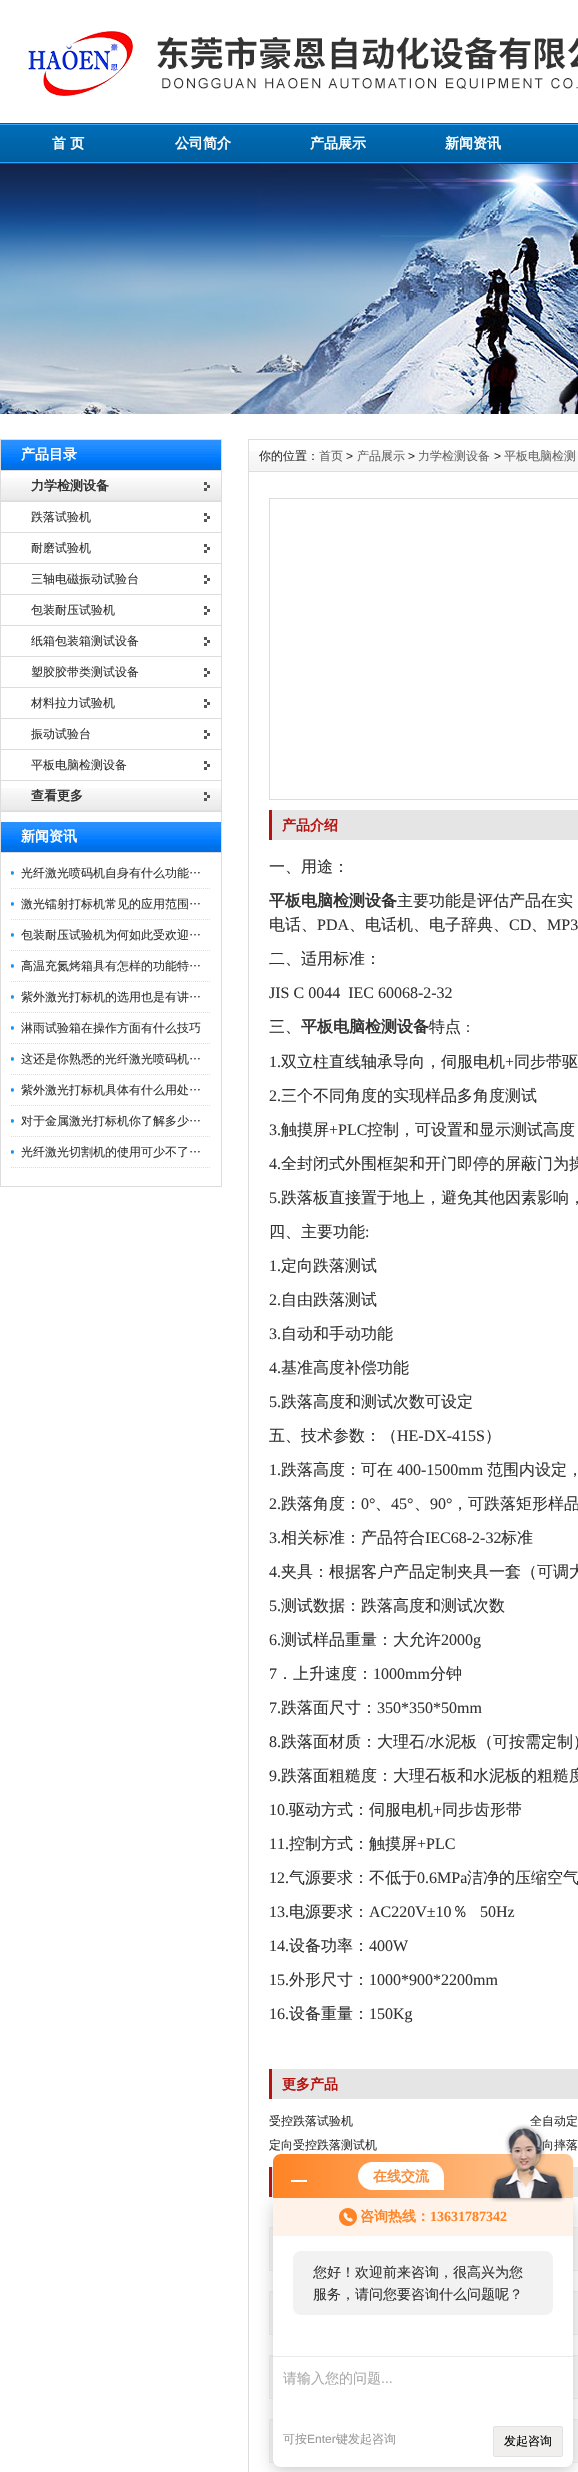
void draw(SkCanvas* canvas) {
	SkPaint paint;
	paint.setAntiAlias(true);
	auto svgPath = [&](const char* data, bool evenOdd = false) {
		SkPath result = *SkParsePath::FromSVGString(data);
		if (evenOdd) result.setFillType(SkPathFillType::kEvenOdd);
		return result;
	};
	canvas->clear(0xffffffff);
	canvas->drawImageRect(SkImages::DeferredFromEncodedData(SkData::MakeFromFileName("img1.png")), SkRect::MakeXYWH(28, 31, 550, 65), SkSamplingOptions());
	canvas->drawImageRect(SkImages::DeferredFromEncodedData(SkData::MakeFromFileName("img2.png")), SkRect::MakeXYWH(0, 123, 578, 41), SkSamplingOptions());
	SkFont f1(fontMgr->matchFamilyStyle("WenQuanYi Zen Hei", SkFontStyle::Bold()), 14);
	f1.setSubpixel(true);
	paint.setColor(0xffffffff);
	canvas->drawString("首 页", 52, 148, f1, paint);
	canvas->drawString("公司简介", 175, 148, f1, paint);
	canvas->drawString("产品展示", 310, 148, f1, paint);
	canvas->drawString("新闻资讯", 445, 148, f1, paint);
	canvas->drawImageRect(SkImages::DeferredFromEncodedData(SkData::MakeFromFileName("img3.png")), SkRect::MakeXYWH(0, 164, 578, 250), SkSamplingOptions());
	paint.setStroke(true);
	paint.setStrokeWidth(1);
	paint.setColor(0xffdddddd);
	canvas->drawRect(SkRect::MakeXYWH(0.5, 439.5, 221, 747), paint);
	canvas->drawImageRect(SkImages::DeferredFromEncodedData(SkData::MakeFromFileName("img4.png")), SkRect::MakeXYWH(1, 440, 220, 30), SkSamplingOptions());
	paint.setStroke(false);
	canvas->drawRect(SkRect::MakeXYWH(1, 470, 220, 1), paint);
	paint.setColor(0xffffffff);
	canvas->drawString("产品目录", 21, 459, f1, paint);
	canvas->drawImageRect(SkImages::DeferredFromEncodedData(SkData::MakeFromFileName("img5.png")), SkRect::MakeXYWH(1, 478, 220, 23), SkSamplingOptions());
	canvas->drawImageRect(SkImages::DeferredFromEncodedData(SkData::MakeFromFileName("img6.png")), SkRect::MakeXYWH(204, 482, 6, 9), SkSamplingOptions());
	paint.setColor(0xffdddddd);
	canvas->drawRect(SkRect::MakeXYWH(1, 501, 220, 1), paint);
	SkFont f2(fontMgr->matchFamilyStyle("WenQuanYi Zen Hei", SkFontStyle::Bold()), 13);
	f2.setSubpixel(true);
	paint.setColor(0xff333333);
	canvas->drawString("力学检测设备", 31, 490, f2, paint);
	canvas->drawImageRect(SkImages::DeferredFromEncodedData(SkData::MakeFromFileName("img7.png")), SkRect::MakeXYWH(204, 513, 6, 9), SkSamplingOptions());
	paint.setColor(0xffdddddd);
	canvas->drawRect(SkRect::MakeXYWH(1, 532, 220, 1), paint);
	SkFont f3(fontMgr->matchFamilyStyle("WenQuanYi Zen Hei", SkFontStyle(500, SkFontStyle::kNormal_Width, SkFontStyle::kUpright_Slant)), 12);
	f3.setSubpixel(true);
	paint.setColor(0xff333333);
	canvas->drawString("跌落试验机", 31, 521, f3, paint);
	canvas->drawImageRect(SkImages::DeferredFromEncodedData(SkData::MakeFromFileName("img7.png")), SkRect::MakeXYWH(204, 544, 6, 9), SkSamplingOptions());
	paint.setColor(0xffdddddd);
	canvas->drawRect(SkRect::MakeXYWH(1, 563, 220, 1), paint);
	paint.setColor(0xff333333);
	canvas->drawString("耐磨试验机", 31, 552, f3, paint);
	canvas->drawImageRect(SkImages::DeferredFromEncodedData(SkData::MakeFromFileName("img7.png")), SkRect::MakeXYWH(204, 575, 6, 9), SkSamplingOptions());
	paint.setColor(0xffdddddd);
	canvas->drawRect(SkRect::MakeXYWH(1, 594, 220, 1), paint);
	paint.setColor(0xff333333);
	canvas->drawString("三轴电磁振动试验台", 31, 583, f3, paint);
	canvas->drawImageRect(SkImages::DeferredFromEncodedData(SkData::MakeFromFileName("img7.png")), SkRect::MakeXYWH(204, 606, 6, 9), SkSamplingOptions());
	paint.setColor(0xffdddddd);
	canvas->drawRect(SkRect::MakeXYWH(1, 625, 220, 1), paint);
	paint.setColor(0xff333333);
	canvas->drawString("包装耐压试验机", 31, 614, f3, paint);
	canvas->drawImageRect(SkImages::DeferredFromEncodedData(SkData::MakeFromFileName("img7.png")), SkRect::MakeXYWH(204, 637, 6, 9), SkSamplingOptions());
	paint.setColor(0xffdddddd);
	canvas->drawRect(SkRect::MakeXYWH(1, 656, 220, 1), paint);
	paint.setColor(0xff333333);
	canvas->drawString("纸箱包装箱测试设备", 31, 645, f3, paint);
	canvas->drawImageRect(SkImages::DeferredFromEncodedData(SkData::MakeFromFileName("img7.png")), SkRect::MakeXYWH(204, 668, 6, 9), SkSamplingOptions());
	paint.setColor(0xffdddddd);
	canvas->drawRect(SkRect::MakeXYWH(1, 687, 220, 1), paint);
	paint.setColor(0xff333333);
	canvas->drawString("塑胶胶带类测试设备", 31, 676, f3, paint);
	canvas->drawImageRect(SkImages::DeferredFromEncodedData(SkData::MakeFromFileName("img7.png")), SkRect::MakeXYWH(204, 699, 6, 9), SkSamplingOptions());
	paint.setColor(0xffdddddd);
	canvas->drawRect(SkRect::MakeXYWH(1, 718, 220, 1), paint);
	paint.setColor(0xff333333);
	canvas->drawString("材料拉力试验机", 31, 707, f3, paint);
	canvas->drawImageRect(SkImages::DeferredFromEncodedData(SkData::MakeFromFileName("img7.png")), SkRect::MakeXYWH(204, 730, 6, 9), SkSamplingOptions());
	paint.setColor(0xffdddddd);
	canvas->drawRect(SkRect::MakeXYWH(1, 749, 220, 1), paint);
	paint.setColor(0xff333333);
	canvas->drawString("振动试验台", 31, 738, f3, paint);
	canvas->drawImageRect(SkImages::DeferredFromEncodedData(SkData::MakeFromFileName("img7.png")), SkRect::MakeXYWH(204, 761, 6, 9), SkSamplingOptions());
	paint.setColor(0xffdddddd);
	canvas->drawRect(SkRect::MakeXYWH(1, 780, 220, 1), paint);
	paint.setColor(0xff333333);
	canvas->drawString("平板电脑检测设备", 31, 769, f3, paint);
	canvas->drawImageRect(SkImages::DeferredFromEncodedData(SkData::MakeFromFileName("img5.png")), SkRect::MakeXYWH(1, 788, 220, 23), SkSamplingOptions());
	canvas->drawImageRect(SkImages::DeferredFromEncodedData(SkData::MakeFromFileName("img6.png")), SkRect::MakeXYWH(204, 792, 6, 9), SkSamplingOptions());
	paint.setColor(0xffdddddd);
	canvas->drawRect(SkRect::MakeXYWH(1, 811, 220, 1), paint);
	paint.setColor(0xff333333);
	canvas->drawString("查看更多", 31, 800, f2, paint);
	canvas->drawImageRect(SkImages::DeferredFromEncodedData(SkData::MakeFromFileName("img4.png")), SkRect::MakeXYWH(1, 822, 220, 30), SkSamplingOptions());
	paint.setColor(0xffdddddd);
	canvas->drawRect(SkRect::MakeXYWH(1, 852, 220, 1), paint);
	paint.setColor(0xffffffff);
	canvas->drawString("新闻资讯", 21, 841, f1, paint);
	canvas->drawImageRect(SkImages::DeferredFromEncodedData(SkData::MakeFromFileName("img8.png")), SkRect::MakeXYWH(11, 870, 3, 5), SkSamplingOptions());
	paint.setStroke(true);
	paint.setColor(0xffdddddd);
	paint.setPathEffect(SkDashPathEffect::Make({{1, 1}}, 0));
	canvas->drawPath(svgPath("M11 888.5H211"), paint);
	paint.setPathEffect(nullptr);
	paint.setStroke(false);
	paint.setColor(0xff333333);
	canvas->drawString("光纤激光喷码机自身有什么功能…", 21, 877, f3, paint);
	canvas->drawImageRect(SkImages::DeferredFromEncodedData(SkData::MakeFromFileName("img8.png")), SkRect::MakeXYWH(11, 901, 3, 5), SkSamplingOptions());
	paint.setStroke(true);
	paint.setColor(0xffdddddd);
	paint.setPathEffect(SkDashPathEffect::Make({{1, 1}}, 0));
	canvas->drawPath(svgPath("M11 919.5H211"), paint);
	paint.setPathEffect(nullptr);
	paint.setStroke(false);
	paint.setColor(0xff333333);
	canvas->drawString("激光镭射打标机常见的应用范围…", 21, 908, f3, paint);
	canvas->drawImageRect(SkImages::DeferredFromEncodedData(SkData::MakeFromFileName("img8.png")), SkRect::MakeXYWH(11, 932, 3, 5), SkSamplingOptions());
	paint.setStroke(true);
	paint.setColor(0xffdddddd);
	paint.setPathEffect(SkDashPathEffect::Make({{1, 1}}, 0));
	canvas->drawPath(svgPath("M11 950.5H211"), paint);
	paint.setPathEffect(nullptr);
	paint.setStroke(false);
	paint.setColor(0xff333333);
	canvas->drawString("包装耐压试验机为何如此受欢迎…", 21, 939, f3, paint);
	canvas->drawImageRect(SkImages::DeferredFromEncodedData(SkData::MakeFromFileName("img8.png")), SkRect::MakeXYWH(11, 963, 3, 5), SkSamplingOptions());
	paint.setStroke(true);
	paint.setColor(0xffdddddd);
	paint.setPathEffect(SkDashPathEffect::Make({{1, 1}}, 0));
	canvas->drawPath(svgPath("M11 981.5H211"), paint);
	paint.setPathEffect(nullptr);
	paint.setStroke(false);
	paint.setColor(0xff333333);
	canvas->drawString("高温充氮烤箱具有怎样的功能特…", 21, 970, f3, paint);
	canvas->drawImageRect(SkImages::DeferredFromEncodedData(SkData::MakeFromFileName("img8.png")), SkRect::MakeXYWH(11, 994, 3, 5), SkSamplingOptions());
	paint.setStroke(true);
	paint.setColor(0xffdddddd);
	paint.setPathEffect(SkDashPathEffect::Make({{1, 1}}, 0));
	canvas->drawPath(svgPath("M11 1012.5H211"), paint);
	paint.setPathEffect(nullptr);
	paint.setStroke(false);
	paint.setColor(0xff333333);
	canvas->drawString("紫外激光打标机的选用也是有讲…", 21, 1001, f3, paint);
	canvas->drawImageRect(SkImages::DeferredFromEncodedData(SkData::MakeFromFileName("img8.png")), SkRect::MakeXYWH(11, 1025, 3, 5), SkSamplingOptions());
	paint.setStroke(true);
	paint.setColor(0xffdddddd);
	paint.setPathEffect(SkDashPathEffect::Make({{1, 1}}, 0));
	canvas->drawPath(svgPath("M11 1043.5H211"), paint);
	paint.setPathEffect(nullptr);
	paint.setStroke(false);
	paint.setColor(0xff333333);
	canvas->drawString("淋雨试验箱在操作方面有什么技巧", 21, 1032, f3, paint);
	canvas->drawImageRect(SkImages::DeferredFromEncodedData(SkData::MakeFromFileName("img8.png")), SkRect::MakeXYWH(11, 1056, 3, 5), SkSamplingOptions());
	paint.setStroke(true);
	paint.setColor(0xffdddddd);
	paint.setPathEffect(SkDashPathEffect::Make({{1, 1}}, 0));
	canvas->drawPath(svgPath("M11 1074.5H211"), paint);
	paint.setPathEffect(nullptr);
	paint.setStroke(false);
	paint.setColor(0xff333333);
	canvas->drawString("这还是你熟悉的光纤激光喷码机…", 21, 1063, f3, paint);
	canvas->drawImageRect(SkImages::DeferredFromEncodedData(SkData::MakeFromFileName("img8.png")), SkRect::MakeXYWH(11, 1087, 3, 5), SkSamplingOptions());
	paint.setStroke(true);
	paint.setColor(0xffdddddd);
	paint.setPathEffect(SkDashPathEffect::Make({{1, 1}}, 0));
	canvas->drawPath(svgPath("M11 1105.5H211"), paint);
	paint.setPathEffect(nullptr);
	paint.setStroke(false);
	paint.setColor(0xff333333);
	canvas->drawString("紫外激光打标机具体有什么用处…", 21, 1094, f3, paint);
	canvas->drawImageRect(SkImages::DeferredFromEncodedData(SkData::MakeFromFileName("img8.png")), SkRect::MakeXYWH(11, 1118, 3, 5), SkSamplingOptions());
	paint.setStroke(true);
	paint.setColor(0xffdddddd);
	paint.setPathEffect(SkDashPathEffect::Make({{1, 1}}, 0));
	canvas->drawPath(svgPath("M11 1136.5H211"), paint);
	paint.setPathEffect(nullptr);
	paint.setStroke(false);
	paint.setColor(0xff333333);
	canvas->drawString("对于金属激光打标机你了解多少…", 21, 1125, f3, paint);
	canvas->drawImageRect(SkImages::DeferredFromEncodedData(SkData::MakeFromFileName("img8.png")), SkRect::MakeXYWH(11, 1149, 3, 5), SkSamplingOptions());
	paint.setStroke(true);
	paint.setColor(0xffdddddd);
	paint.setPathEffect(SkDashPathEffect::Make({{1, 1}}, 0));
	canvas->drawPath(svgPath("M11 1167.5H211"), paint);
	paint.setPathEffect(nullptr);
	paint.setStroke(false);
	paint.setColor(0xff333333);
	canvas->drawString("光纤激光切割机的使用可少不了…", 21, 1156, f3, paint);
	paint.setStroke(true);
	paint.setColor(0xffdddddd);
	canvas->drawRect(SkRect::MakeXYWH(248.5, 439.5, 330, 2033), paint);
	canvas->drawImageRect(SkImages::DeferredFromEncodedData(SkData::MakeFromFileName("img9.png")), SkRect::MakeXYWH(249, 451, 329, 21), SkSamplingOptions());
	paint.setStroke(false);
	paint.setColor(0xff333333);
	canvas->drawString("你的位置：", 259, 460, f3, paint);
	paint.setColor(0xff666666);
	canvas->drawString("首页", 319, 460, f3, paint);
	SkFont f4(fontMgr->matchFamilyStyle("Liberation Sans", SkFontStyle::Normal()), 12);
	f4.setSubpixel(true);
	paint.setColor(0xff333333);
	canvas->drawString(">", 346, 460, f4, paint);
	paint.setColor(0xff666666);
	canvas->drawString("产品展示", 357, 460, f3, paint);
	paint.setColor(0xff333333);
	canvas->drawString(">", 408, 460, f4, paint);
	paint.setColor(0xff666666);
	canvas->drawString("力学检测设备", 418, 460, f3, paint);
	paint.setColor(0xff333333);
	canvas->drawString(">", 494, 460, f4, paint);
	paint.setColor(0xff666666);
	canvas->drawString("平板电脑检测", 504, 460, f3, paint);
	paint.setStroke(true);
	paint.setColor(0xffdddddd);
	canvas->drawRect(SkRect::MakeXYWH(269.5, 498.5, 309, 301), paint);
	paint.setStroke(false);
	paint.setColor(0xffe5e5e5);
	canvas->drawRect(SkRect::MakeXYWH(272, 810, 306, 30), paint);
	paint.setColor(0xffb6120f);
	canvas->drawRect(SkRect::MakeXYWH(269, 810, 3, 30), paint);
	canvas->drawString("产品介绍", 282, 830, f1, paint);
	SkFont f5(fontMgr->matchFamilyStyle("WenQuanYi Zen Hei", SkFontStyle(500, SkFontStyle::kNormal_Width, SkFontStyle::kUpright_Slant)), 16);
	f5.setSubpixel(true);
	paint.setColor(0xff333333);
	canvas->drawString("一、用途：", 269, 872, f5, paint);
	SkFont f6(fontMgr->matchFamilyStyle("WenQuanYi Zen Hei", SkFontStyle::Bold()), 16);
	f6.setSubpixel(true);
	canvas->drawString("平板电脑检测设备", 269, 906, f6, paint);
	canvas->drawString("主要功能是评估产品在实", 397, 906, f5, paint);
	canvas->drawString("电话、", 269, 930, f5, paint);
	SkFont f7(fontMgr->matchFamilyStyle("Liberation Serif", SkFontStyle::Normal()), 16);
	f7.setSubpixel(true);
	canvas->drawString("PDA", 317, 930, f7, paint);
	canvas->drawString("、电话机、电子辞典、", 349, 930, f5, paint);
	canvas->drawString("CD", 509, 930, f7, paint);
	canvas->drawString("、", 531, 930, f5, paint);
	canvas->drawString("MP3", 547, 930, f7, paint);
	canvas->drawString("二、适用标准：", 269, 964, f5, paint);
	canvas->drawString("JIS C 0044  IEC 60068-2-32", 269, 998, f7, paint);
	canvas->drawString("三、", 269, 1032, f5, paint);
	canvas->drawString("平板电脑检测设备", 301, 1032, f6, paint);
	canvas->drawString("特点", 429, 1032, f5, paint);
	SkFont f8(fontMgr->matchFamilyStyle("WenQuanYi Zen Hei", SkFontStyle(500, SkFontStyle::kNormal_Width, SkFontStyle::kUpright_Slant)), 14);
	f8.setSubpixel(true);
	canvas->drawString("：", 461, 1032, f8, paint);
	canvas->drawString("1.", 269, 1067, f7, paint);
	canvas->drawString("双立柱直线轴承导向，伺服电机", 281, 1067, f5, paint);
	canvas->drawString("+", 505, 1067, f7, paint);
	canvas->drawString("同步带驱", 514, 1067, f5, paint);
	canvas->drawString("2.", 269, 1101, f7, paint);
	canvas->drawString("三个不同角度的实现样品多角度测试", 281, 1101, f5, paint);
	canvas->drawString("3.", 269, 1135, f7, paint);
	canvas->drawString("触摸屏", 281, 1135, f5, paint);
	canvas->drawString("+PLC", 329, 1135, f7, paint);
	canvas->drawString("控制，可设置和显示测试高度", 367, 1135, f5, paint);
	canvas->drawString("4.", 269, 1169, f7, paint);
	canvas->drawString("全封闭式外围框架和开门即停的屏蔽门为操", 281, 1169, f5, paint);
	canvas->drawString("5.", 269, 1203, f7, paint);
	canvas->drawString("跌落板直接置于地上，避免其他因素影响，", 281, 1203, f5, paint);
	canvas->drawString("四、主要功能", 269, 1237, f5, paint);
	canvas->drawString(":", 365, 1237, f7, paint);
	canvas->drawString("1.", 269, 1271, f7, paint);
	canvas->drawString("定向跌落测试", 281, 1271, f5, paint);
	canvas->drawString("2.", 269, 1305, f7, paint);
	canvas->drawString("自由跌落测试", 281, 1305, f5, paint);
	canvas->drawString("3.", 269, 1339, f7, paint);
	canvas->drawString("自动和手动功能", 281, 1339, f5, paint);
	canvas->drawString("4.", 269, 1373, f7, paint);
	canvas->drawString("基准高度补偿功能", 281, 1373, f5, paint);
	canvas->drawString("5.", 269, 1407, f7, paint);
	canvas->drawString("跌落高度和测试次数可设定", 281, 1407, f5, paint);
	canvas->drawString("五、技术参数：（", 269, 1441, f5, paint);
	canvas->drawString("HE-DX-415S", 397, 1441, f7, paint);
	canvas->drawString("）", 485, 1441, f5, paint);
	canvas->drawString("1.", 269, 1475, f7, paint);
	canvas->drawString("跌落高度：可在", 281, 1475, f5, paint);
	canvas->drawString("400-1500mm", 397, 1475, f7, paint);
	canvas->drawString("范围内设定，", 487, 1475, f5, paint);
	canvas->drawString("2.", 269, 1509, f7, paint);
	canvas->drawString("跌落角度：", 281, 1509, f5, paint);
	canvas->drawString("0°", 361, 1509, f7, paint);
	canvas->drawString("、", 375, 1509, f5, paint);
	canvas->drawString("45°", 391, 1509, f7, paint);
	canvas->drawString("、", 414, 1509, f5, paint);
	canvas->drawString("90°", 430, 1509, f7, paint);
	canvas->drawString("，可跌落矩形样品", 452, 1509, f5, paint);
	canvas->drawString("3.", 269, 1543, f7, paint);
	canvas->drawString("相关标准：产品符合", 281, 1543, f5, paint);
	canvas->drawString("IEC68-2-32", 425, 1543, f7, paint);
	canvas->drawString("标准", 501, 1543, f5, paint);
	canvas->drawString("4.", 269, 1577, f7, paint);
	canvas->drawString("夹具：根据客户产品定制夹具一套（可调大", 281, 1577, f5, paint);
	canvas->drawString("5.", 269, 1611, f7, paint);
	canvas->drawString("测试数据：跌落高度和测试次数", 281, 1611, f5, paint);
	canvas->drawString("6.", 269, 1645, f7, paint);
	canvas->drawString("测试样品重量：大允许", 281, 1645, f5, paint);
	canvas->drawString("2000g", 441, 1645, f7, paint);
	canvas->drawString("7", 269, 1679, f7, paint);
	canvas->drawString("．上升速度：", 277, 1679, f5, paint);
	canvas->drawString("1000mm", 373, 1679, f7, paint);
	canvas->drawString("分钟", 430, 1679, f5, paint);
	canvas->drawString("7.", 269, 1713, f7, paint);
	canvas->drawString("跌落面尺寸：", 281, 1713, f5, paint);
	canvas->drawString("350*350*50mm", 377, 1713, f7, paint);
	canvas->drawString("8.", 269, 1747, f7, paint);
	canvas->drawString("跌落面材质：大理石", 281, 1747, f5, paint);
	canvas->drawString("/", 425, 1747, f7, paint);
	canvas->drawString("水泥板（可按需定制）", 429, 1747, f5, paint);
	canvas->drawString("9.", 269, 1781, f7, paint);
	canvas->drawString("跌落面粗糙度：大理石板和水泥板的粗糙度", 281, 1781, f5, paint);
	canvas->drawString("10.", 269, 1815, f7, paint);
	canvas->drawString("驱动方式：伺服电机", 289, 1815, f5, paint);
	canvas->drawString("+", 433, 1815, f7, paint);
	canvas->drawString("同步齿形带", 442, 1815, f5, paint);
	canvas->drawString("11.", 269, 1849, f7, paint);
	canvas->drawString("控制方式：触摸屏", 289, 1849, f5, paint);
	canvas->drawString("+PLC", 417, 1849, f7, paint);
	canvas->drawString("12.", 269, 1883, f7, paint);
	canvas->drawString("气源要求：不低于", 289, 1883, f5, paint);
	canvas->drawString("0.6MPa", 417, 1883, f7, paint);
	canvas->drawString("洁净的压缩空气", 467, 1883, f5, paint);
	canvas->drawString("13.", 269, 1917, f7, paint);
	canvas->drawString("电源要求：", 289, 1917, f5, paint);
	canvas->drawString("AC220V±10", 369, 1917, f7, paint);
	canvas->drawString("％", 452, 1917, f5, paint);
	canvas->drawString("50Hz", 480, 1917, f7, paint);
	canvas->drawString("14.", 269, 1951, f7, paint);
	canvas->drawString("设备功率：", 289, 1951, f5, paint);
	canvas->drawString("400W", 369, 1951, f7, paint);
	canvas->drawString("15.", 269, 1985, f7, paint);
	canvas->drawString("外形尺寸：", 289, 1985, f5, paint);
	canvas->drawString("1000*900*2200mm", 369, 1985, f7, paint);
	canvas->drawString("16.", 269, 2019, f7, paint);
	canvas->drawString("设备重量：", 289, 2019, f5, paint);
	canvas->drawString("150Kg", 369, 2019, f7, paint);
	paint.setColor(0xffe5e5e5);
	canvas->drawRect(SkRect::MakeXYWH(272, 2069, 306, 30), paint);
	paint.setColor(0xffb6120f);
	canvas->drawRect(SkRect::MakeXYWH(269, 2069, 3, 30), paint);
	canvas->drawString("更多产品", 282, 2089, f1, paint);
	paint.setColor(0xff333333);
	canvas->drawString("受控跌落试验机", 269, 2125, f3, paint);
	canvas->drawString("全自动定", 530, 2125, f3, paint);
	canvas->drawString("定向受控跌落测试机", 269, 2149, f3, paint);
	canvas->drawString("向摔落", 542, 2149, f3, paint);
	paint.setColor(0xffe5e5e5);
	canvas->drawRect(SkRect::MakeXYWH(272, 2167, 306, 30), paint);
	paint.setColor(0xffb6120f);
	canvas->drawRect(SkRect::MakeXYWH(269, 2167, 3, 30), paint);
	paint.setColor(0xfff8f8f8);
	canvas->drawRect(SkRect::MakeXYWH(269.5, 2227.5, 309, 43), paint);
	paint.setStroke(true);
	paint.setColor(0xfff1f1f1);
	canvas->drawRect(SkRect::MakeXYWH(269.5, 2227.5, 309, 43), paint);
	paint.setStroke(false);
	paint.setColor(0xfff8f8f8);
	canvas->drawRect(SkRect::MakeXYWH(269.5, 2291.5, 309, 43), paint);
	paint.setStroke(true);
	paint.setColor(0xfff1f1f1);
	canvas->drawRect(SkRect::MakeXYWH(269.5, 2291.5, 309, 43), paint);
	paint.setStroke(false);
	paint.setColor(0xfff8f8f8);
	canvas->drawRect(SkRect::MakeXYWH(269.5, 2355.5, 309, 43), paint);
	paint.setStroke(true);
	paint.setColor(0xfff1f1f1);
	canvas->drawRect(SkRect::MakeXYWH(269.5, 2355.5, 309, 43), paint);
	paint.setStroke(false);
	paint.setColor(0xfff8f8f8);
	canvas->drawRect(SkRect::MakeXYWH(269.5, 2419.5, 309, 43), paint);
	paint.setStroke(true);
	paint.setColor(0xfff1f1f1);
	canvas->drawRect(SkRect::MakeXYWH(269.5, 2419.5, 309, 43), paint);
	paint.setStroke(false);
	paint.setColor(0x33000000);
	paint.setMaskFilter(SkMaskFilter::MakeBlur(kNormal_SkBlurStyle, 8));
	canvas->drawRoundRect(SkRect::MakeXYWH(273, 2202, 300, 269), 8, 8, paint);
	paint.setMaskFilter(nullptr);
	{
		const SkColor colors[] = {0xffff8324, 0xfffecb9c};
		const float stops[] = {0, 1};
		const SkPoint ends[] = {{273, 2176}, {573, 2176}};
		paint.setShader(SkGradientShader::MakeLinear(ends, colors, stops, 2, SkTileMode::kClamp));
		paint.setAlpha(255);
	}
	canvas->drawPath(svgPath("M281 2154H565C569.5 2154 573 2157.5 573 2162V2198H273V2162C273 2157.5 276.5 2154 281 2154Z"), paint);
	paint.setShader(nullptr);
	paint.setColor(0xffffffff);
	canvas->drawRect(SkRect::MakeXYWH(291, 2180, 16, 2), paint);
	canvas->drawPath(svgPath("M372 2162H430C437.5 2162 444 2168.5 444 2176V2190H372C364.5 2190 358 2183.5 358 2176C358 2168.5 364.5 2162 372 2162Z"), paint);
	paint.setColor(0xfffb8b36);
	canvas->drawString("在线交流", 373, 2181, f1, paint);
	paint.setColor(0xffffffff);
	canvas->drawPath(svgPath("M273 2198H573V2459C573 2463.5 569.5 2467 565 2467H281C276.5 2467 273 2463.5 273 2459Z"), paint);
	paint.setColor(0xfffff3e9);
	canvas->drawRect(SkRect::MakeXYWH(273, 2198, 300, 38), paint);
	canvas->drawImageRect(SkImages::DeferredFromEncodedData(SkData::MakeFromFileName("img10.png")), SkRect::MakeXYWH(489, 2124, 76, 78), SkSamplingOptions());
	canvas->drawImageRect(SkImages::DeferredFromEncodedData(SkData::MakeFromFileName("img11.png")), SkRect::MakeXYWH(339, 2208, 18, 18), SkSamplingOptions());
	paint.setColor(0xffff8426);
	canvas->drawString("咨询热线：", 360, 2221, f1, paint);
	SkFont f9(fontMgr->matchFamilyStyle("Liberation Serif", SkFontStyle::Bold()), 14);
	f9.setSubpixel(true);
	canvas->drawString("13631787342", 430, 2221, f9, paint);
	paint.setColor(0xfff2f2f2);
	canvas->drawRoundRect(SkRect::MakeXYWH(293, 2251, 260, 64), 8, 8, paint);
	paint.setColor(0xff333333);
	canvas->drawString("您好！欢迎前来咨询，很高兴为您", 313, 2277, f8, paint);
	canvas->drawString("服务，请问您要咨询什么问题呢？", 313, 2299, f8, paint);
	paint.setColor(0xffeaeaea);
	canvas->drawRect(SkRect::MakeXYWH(273, 2356, 300, 1), paint);
	paint.setColor(0xffaaaaaa);
	canvas->drawString("请输入您的问题", 283, 2383, f8, paint);
	SkFont f10(fontMgr->matchFamilyStyle("Liberation Sans", SkFontStyle::Normal()), 14);
	f10.setSubpixel(true);
	canvas->drawString("...", 381, 2383, f10, paint);
	paint.setColor(0xff999999);
	canvas->drawString("可按", 283, 2443, f3, paint);
	canvas->drawString("Enter", 307, 2443, f4, paint);
	canvas->drawString("键发起咨询", 336, 2443, f3, paint);
	paint.setColor(0xfff0efed);
	canvas->drawRoundRect(SkRect::MakeXYWH(493.5, 2426.5, 69, 30), 1.5, 1.5, paint);
	paint.setStroke(true);
	paint.setColor(0xffe2e2e2);
	canvas->drawRoundRect(SkRect::MakeXYWH(493.5, 2426.5, 69, 30), 1.5, 1.5, paint);
	paint.setStroke(false);
	paint.setColor(0xff000000);
	canvas->drawString("发起咨询", 504, 2445, f3, paint);
}
